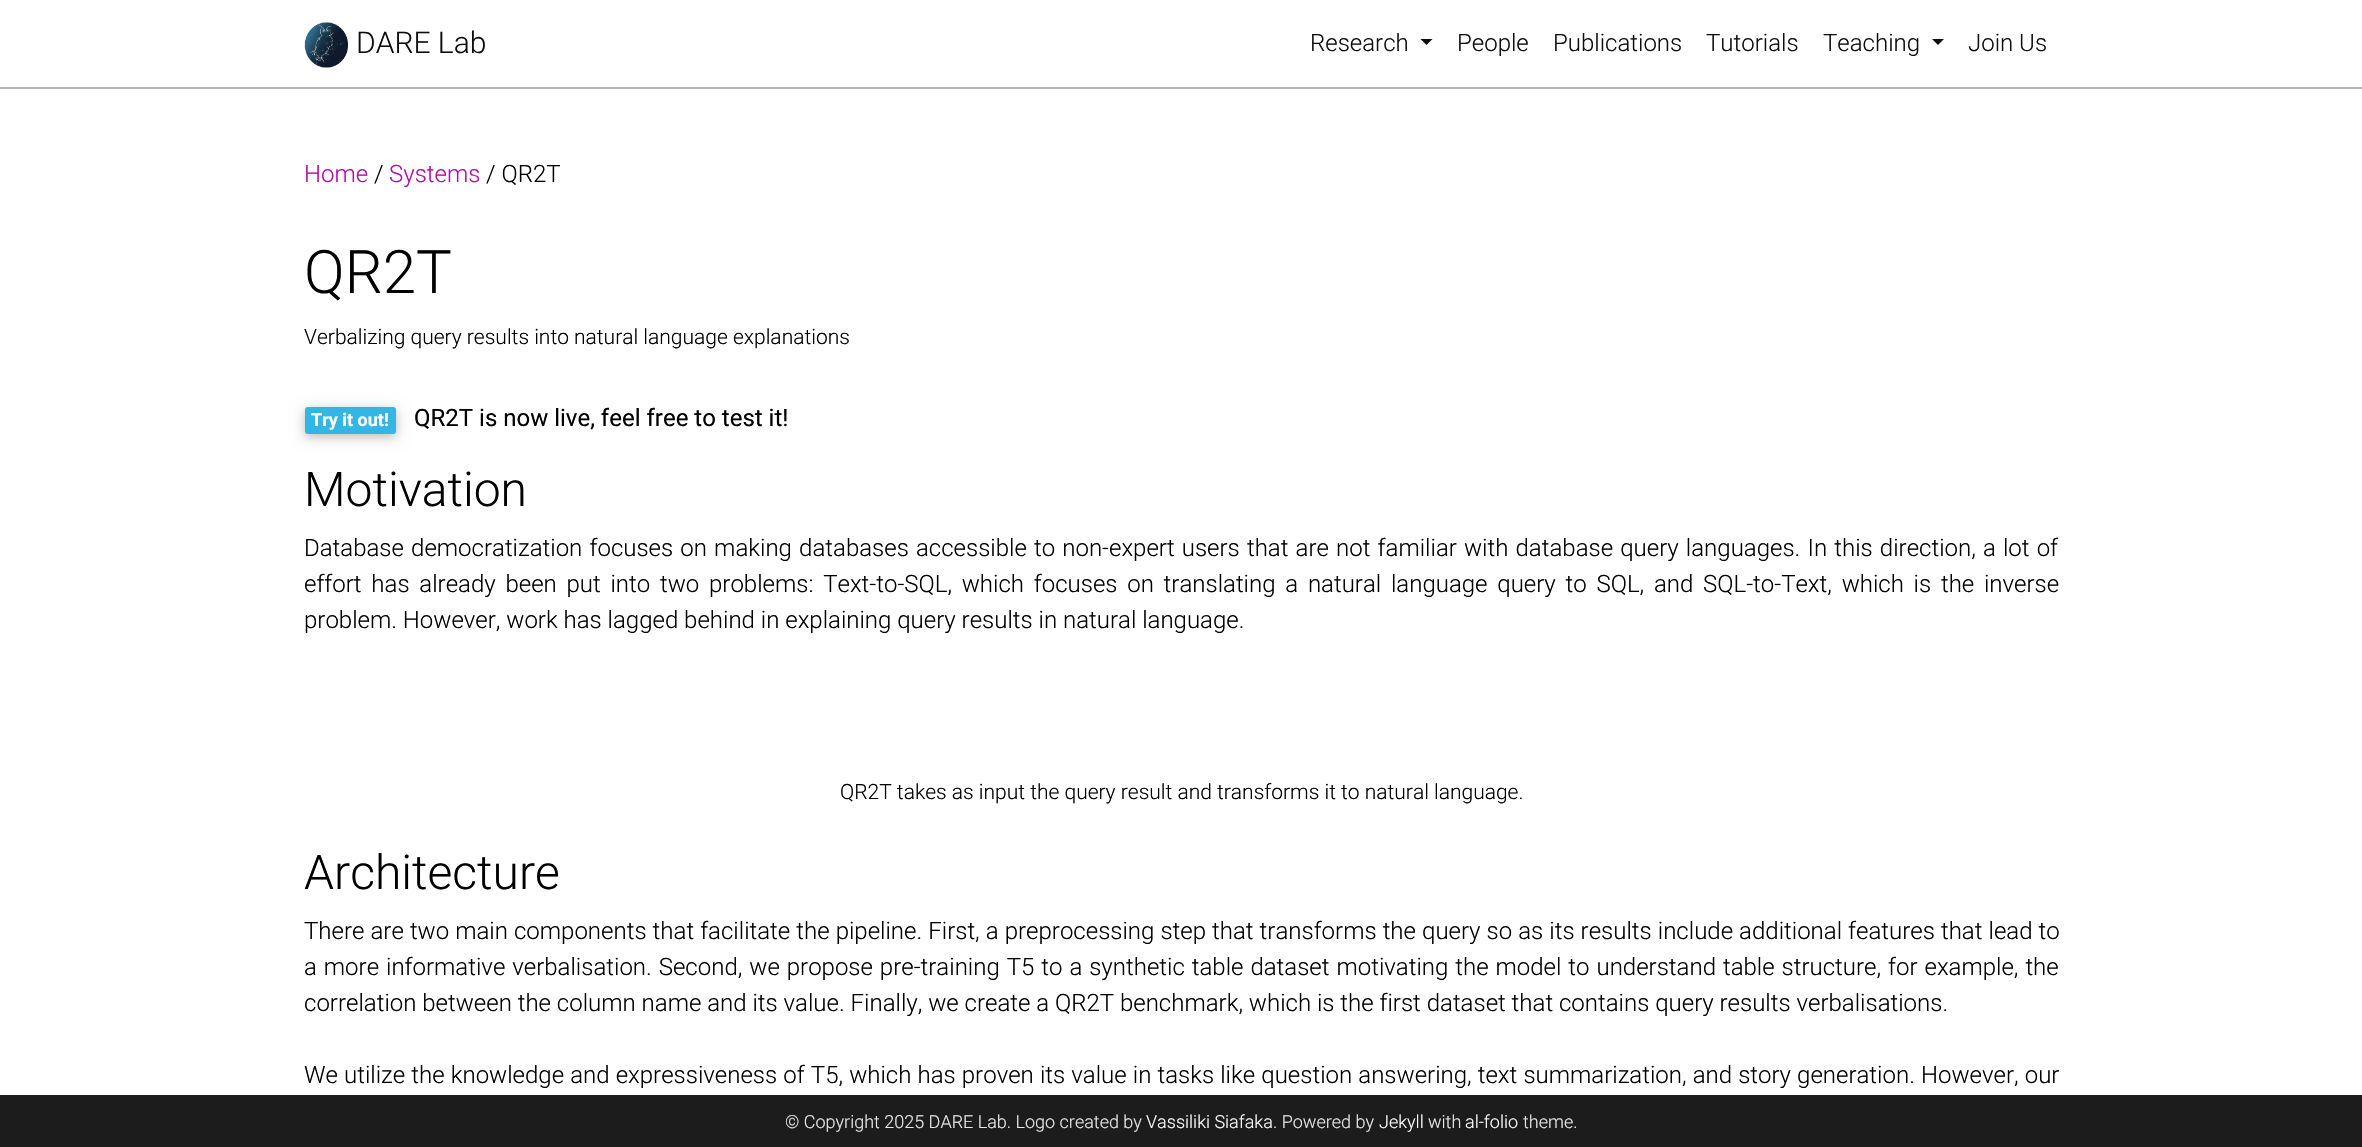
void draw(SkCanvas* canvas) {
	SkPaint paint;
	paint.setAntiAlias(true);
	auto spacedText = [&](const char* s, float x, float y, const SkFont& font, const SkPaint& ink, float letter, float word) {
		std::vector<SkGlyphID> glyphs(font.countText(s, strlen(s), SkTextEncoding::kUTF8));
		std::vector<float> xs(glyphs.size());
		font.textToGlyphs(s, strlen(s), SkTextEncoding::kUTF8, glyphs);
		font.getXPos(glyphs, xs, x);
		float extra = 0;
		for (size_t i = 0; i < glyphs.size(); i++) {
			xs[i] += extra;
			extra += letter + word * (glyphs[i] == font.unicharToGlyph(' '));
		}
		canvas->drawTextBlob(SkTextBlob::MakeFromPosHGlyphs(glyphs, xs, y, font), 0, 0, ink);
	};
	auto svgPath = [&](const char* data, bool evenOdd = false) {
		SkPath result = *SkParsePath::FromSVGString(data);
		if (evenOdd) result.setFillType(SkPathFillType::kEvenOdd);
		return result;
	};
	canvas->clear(0xffffffff);
	paint.setColor(0xffb6b6b6);
	canvas->drawRect(SkRect::MakeXYWH(0, 87, 2362, 2), paint);
	canvas->drawImageRect(SkImages::DeferredFromEncodedData(SkData::MakeFromFileName("img1.png")), SkRect::MakeXYWH(304, 22, 44, 46), SkSamplingOptions());
	SkFont f1(fontMgr->matchFamilyStyle("Roboto", SkFontStyle(300, SkFontStyle::kNormal_Width, SkFontStyle::kUpright_Slant)), 30);
	f1.setSubpixel(true);
	paint.setColor(0xff0d0d0d);
	canvas->drawString("DARE Lab", 356, 53, f1, paint);
	SkFont f2(fontMgr->matchFamilyStyle("Roboto", SkFontStyle(300, SkFontStyle::kNormal_Width, SkFontStyle::kUpright_Slant)), 24);
	f2.setSubpixel(true);
	canvas->drawString("Research", 1310, 51, f2, paint);
	canvas->drawPath(svgPath("M1420.5 39H1432.5L1426.5 45Z"), paint);
	canvas->drawString("People", 1457, 51, f2, paint);
	canvas->drawString("Publications", 1553, 51, f2, paint);
	canvas->drawString("Tutorials", 1706, 51, f2, paint);
	canvas->drawString("Teaching", 1823, 51, f2, paint);
	canvas->drawPath(svgPath("M1932 39H1944L1938 45Z"), paint);
	canvas->drawString("Join Us", 1968, 51, f2, paint);
	paint.setColor(0xffb509ac);
	canvas->drawString("Home", 304, 182, f2, paint);
	paint.setColor(0xff000000);
	canvas->drawString("/", 374, 182, f2, paint);
	paint.setColor(0xffb509ac);
	canvas->drawString("Systems", 389, 182, f2, paint);
	paint.setColor(0xff000000);
	canvas->drawString("/ QR2T", 486, 182, f2, paint);
	SkFont f3(fontMgr->matchFamilyStyle("Roboto", SkFontStyle(300, SkFontStyle::kNormal_Width, SkFontStyle::kUpright_Slant)), 60);
	f3.setSubpixel(true);
	canvas->drawString("QR2T", 304, 293, f3, paint);
	SkFont f4(fontMgr->matchFamilyStyle("Roboto", SkFontStyle(300, SkFontStyle::kNormal_Width, SkFontStyle::kUpright_Slant)), 21);
	f4.setSubpixel(true);
	canvas->drawString("Verbalizing query results into natural language explanations", 304, 344, f4, paint);
	paint.setColor(0x1f000000);
	paint.setMaskFilter(SkMaskFilter::MakeBlur(kNormal_SkBlurStyle, 7.5));
	canvas->drawRoundRect(SkRect::MakeXYWH(305, 410, 91, 27), 3, 3, paint);
	paint.setMaskFilter(nullptr);
	paint.setColor(0x29000000);
	paint.setMaskFilter(SkMaskFilter::MakeBlur(kNormal_SkBlurStyle, 4));
	canvas->drawRoundRect(SkRect::MakeXYWH(305, 410, 91, 27), 3, 3, paint);
	paint.setMaskFilter(nullptr);
	paint.setColor(0xff33b5e5);
	canvas->drawRoundRect(SkRect::MakeXYWH(305, 407, 91, 27), 3, 3, paint);
	SkFont f5(fontMgr->matchFamilyStyle("Roboto", SkFontStyle::Bold()), 18);
	f5.setSubpixel(true);
	paint.setColor(0xffffffff);
	canvas->drawString("Try it out!", 311, 426, f5, paint);
	SkFont f6(fontMgr->matchFamilyStyle("Roboto", SkFontStyle::Normal()), 24);
	f6.setSubpixel(true);
	paint.setColor(0xff000000);
	canvas->drawString("QR2T is now live, feel free to test it!", 414, 426, f6, paint);
	SkFont f7(fontMgr->matchFamilyStyle("Roboto", SkFontStyle(300, SkFontStyle::kNormal_Width, SkFontStyle::kUpright_Slant)), 48);
	f7.setSubpixel(true);
	canvas->drawString("Motivation", 304, 506, f7, paint);
	spacedText("Database democratization focuses on making databases accessible to non-expert users that are not familiar with database query languages. In this direction, a lot of", 304, 556, f2, paint, 0, 1.3);
	spacedText("effort has already been put into two problems: Text-to-SQL, which focuses on translating a natural language query to SQL, and SQL-to-Text, which is the inverse", 304, 592, f2, paint, 0, 3.9);
	canvas->drawString("problem. However, work has lagged behind in explaining query results in natural language.", 304, 628, f2, paint);
	canvas->drawString("QR2T takes as input the query result and transforms it to natural language.", 840, 799, f4, paint);
	canvas->drawString("Architecture", 304, 889, f7, paint);
	spacedText("There are two main components that facilitate the pipeline. First, a preprocessing step that transforms the query so as its results include additional features that lead to", 304, 939, f2, paint, 0, 0.2);
	spacedText("a more informative verbalisation. Second, we propose pre-training T5 to a synthetic table dataset motivating the model to understand table structure, for example, the", 304, 975, f2, paint, 0, 1.1);
	canvas->drawString("correlation between the column name and its value. Finally, we create a QR2T benchmark, which is the first dataset that contains query results verbalisations.", 304, 1011, f2, paint);
	spacedText("We utilize the knowledge and expressiveness of T5, which has proven its value in tasks like question answering, text summarization, and story generation. However, our", 304, 1083, f2, paint, 0, 0.25);
	paint.setColor(0xff1c1c1d);
	canvas->drawRect(SkRect::MakeXYWH(0, 1095, 2362, 52), paint);
	SkFont f8(fontMgr->matchFamilyStyle("Roboto", SkFontStyle(300, SkFontStyle::kNormal_Width, SkFontStyle::kUpright_Slant)), 18);
	f8.setSubpixel(true);
	paint.setColor(0xffe8e8e8);
	canvas->drawString("© Copyright 2025 DARE Lab. Logo created by", 785, 1128, f8, paint);
	paint.setColor(0xffffffff);
	canvas->drawString("Vassiliki Siafaka", 1146, 1128, f8, paint);
	paint.setColor(0xffe8e8e8);
	canvas->drawString(". Powered by", 1273, 1128, f8, paint);
	paint.setColor(0xffffffff);
	canvas->drawString("Jekyll", 1379, 1128, f8, paint);
	paint.setColor(0xffe8e8e8);
	canvas->drawString("with", 1428, 1128, f8, paint);
	paint.setColor(0xffffffff);
	canvas->drawString("al-folio", 1465, 1128, f8, paint);
	paint.setColor(0xffe8e8e8);
	canvas->drawString("theme.", 1523, 1128, f8, paint);
}
